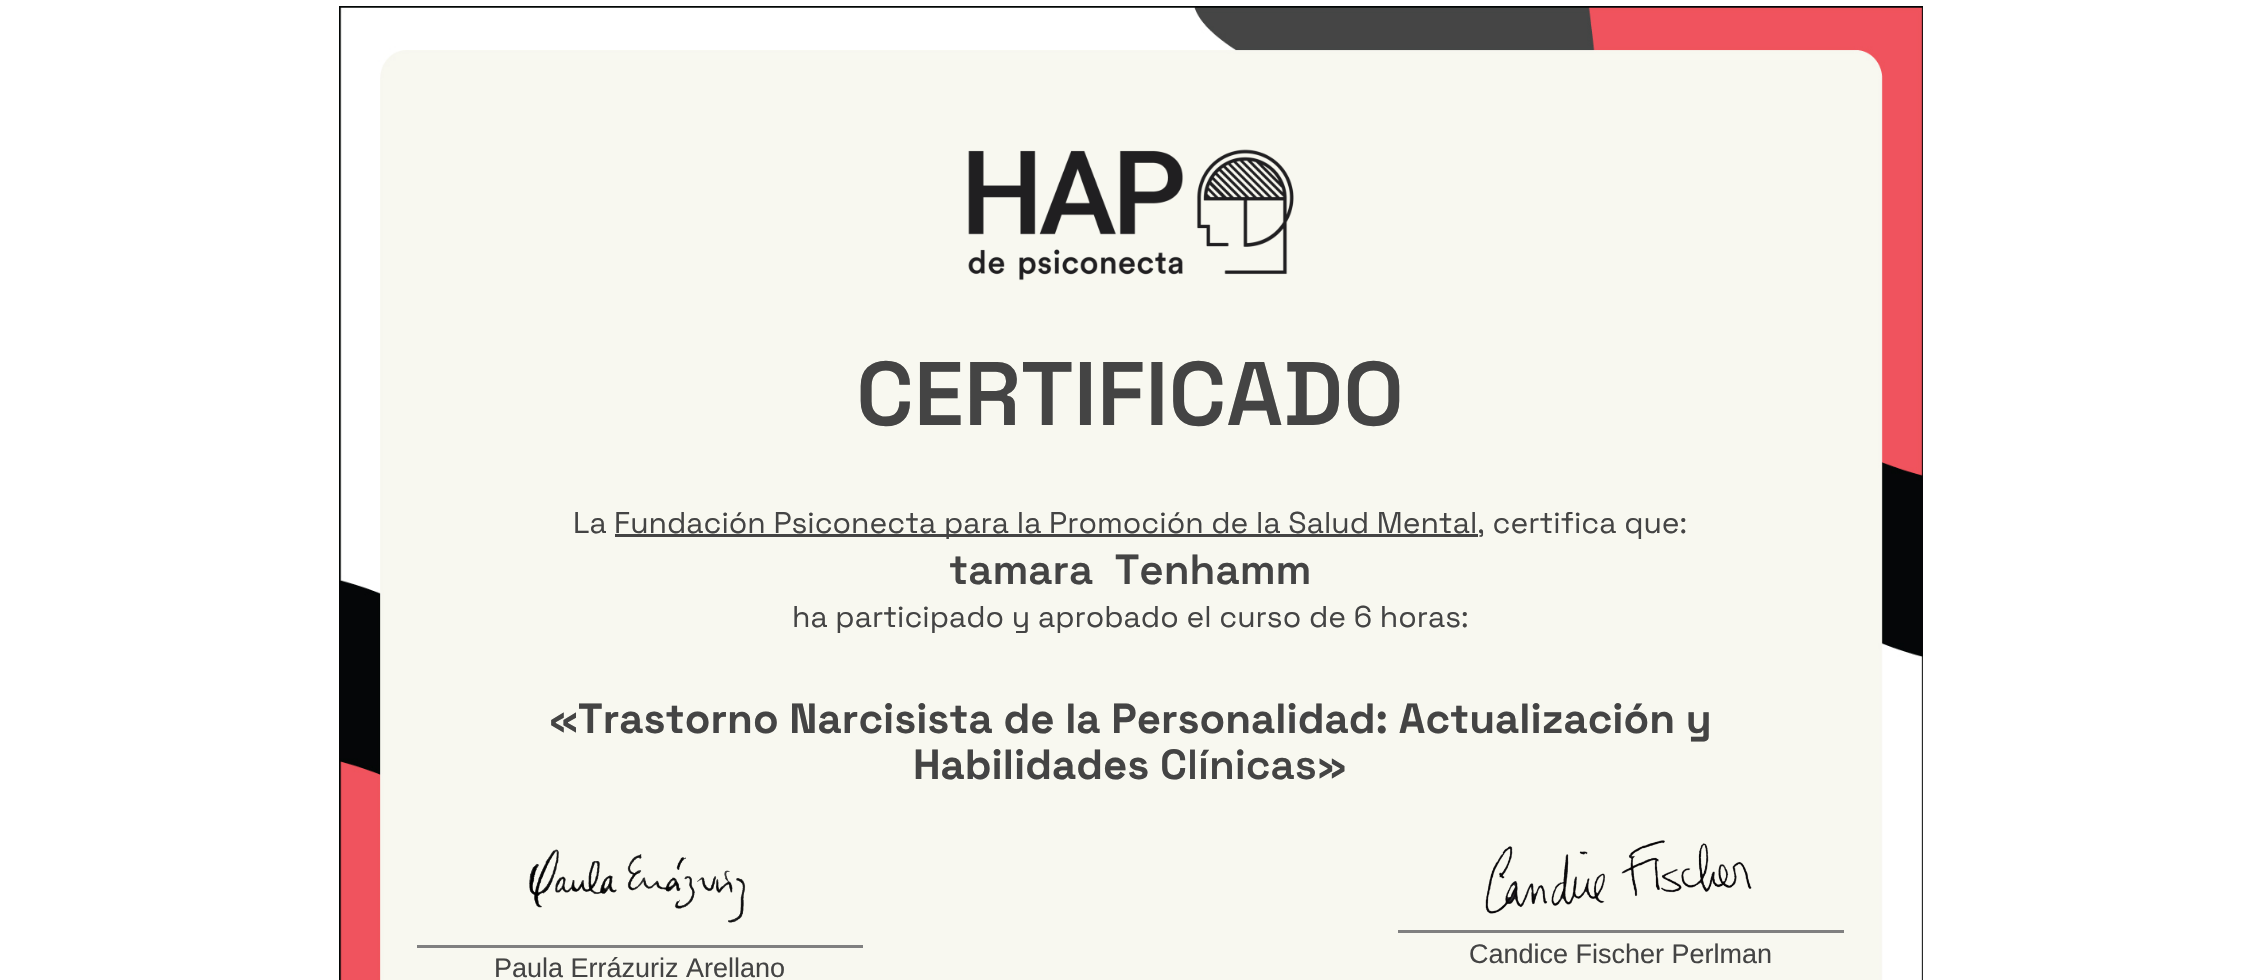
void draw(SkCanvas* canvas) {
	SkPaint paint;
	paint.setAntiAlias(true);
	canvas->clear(0xffffffff);
	canvas->drawImageRect(SkImages::DeferredFromEncodedData(SkData::MakeFromFileName("img1.png")), SkRect::MakeXYWH(339, 6, 1584, 974), SkSamplingOptions());
	canvas->drawImageRect(SkImages::DeferredFromEncodedData(SkData::MakeFromFileName("img2.png")), SkRect::MakeXYWH(968, 149, 326, 132), SkSamplingOptions());
	SkFont f1(fontMgr->matchFamilyStyle("Space Grotesk", SkFontStyle(600, SkFontStyle::kNormal_Width, SkFontStyle::kUpright_Slant)), 90);
	f1.setSubpixel(true);
	paint.setColor(0xff444444);
	canvas->drawString("CERTIFICADO", 856, 425, f1, paint);
	SkFont f2(fontMgr->matchFamilyStyle("Space Grotesk", SkFontStyle::Normal()), 30);
	f2.setSubpixel(true);
	canvas->drawString("La", 573, 533, f2, paint);
	canvas->drawRect(SkRect::MakeXYWH(615, 534, 863, 3), paint);
	canvas->drawString("Fundación Psiconecta para la Promoción de la Salud Mental, certifica que:", 614, 533, f2, paint);
	SkFont f3(fontMgr->matchFamilyStyle("Space Grotesk", SkFontStyle(600, SkFontStyle::kNormal_Width, SkFontStyle::kUpright_Slant)), 42);
	f3.setSubpixel(true);
	canvas->drawString("tamara  Tenhamm", 949, 584, f3, paint);
	canvas->drawString("ha participado y aprobado el curso de 6 horas:", 792, 627, f2, paint);
	canvas->drawString("«", 549, 733, f3, paint);
	SkFont f4(fontMgr->matchFamilyStyle("Space Grotesk", SkFontStyle::Bold()), 42);
	f4.setSubpixel(true);
	canvas->drawString("Trastorno Narcisista de la Personalidad: Actualización y", 578, 733, f4, paint);
	canvas->drawString("Habilidades", 913, 779, f4, paint);
	canvas->drawString("Clínicas»", 1160, 779, f3, paint);
	canvas->drawImageRect(SkImages::DeferredFromEncodedData(SkData::MakeFromFileName("img3.png")), SkRect::MakeXYWH(1485, 840, 267, 74), SkSamplingOptions());
	paint.setColor(0xff808080);
	canvas->drawRect(SkRect::MakeXYWH(1398, 930, 446, 3), paint);
	SkFont f5(fontMgr->matchFamilyStyle("Liberation Sans", SkFontStyle::Normal()), 27);
	f5.setSubpixel(true);
	paint.setColor(0xff444444);
	canvas->drawString("Candice Fischer Perlman", 1469, 963, f5, paint);
	canvas->drawImageRect(SkImages::DeferredFromEncodedData(SkData::MakeFromFileName("img4.png")), SkRect::MakeXYWH(529, 849, 217, 74), SkSamplingOptions());
	paint.setColor(0xff808080);
	canvas->drawRect(SkRect::MakeXYWH(417, 945, 446, 3), paint);
	paint.setColor(0xff444444);
	canvas->drawString("Paula Errázuriz Arellano", 494, 977, f5, paint);
}
